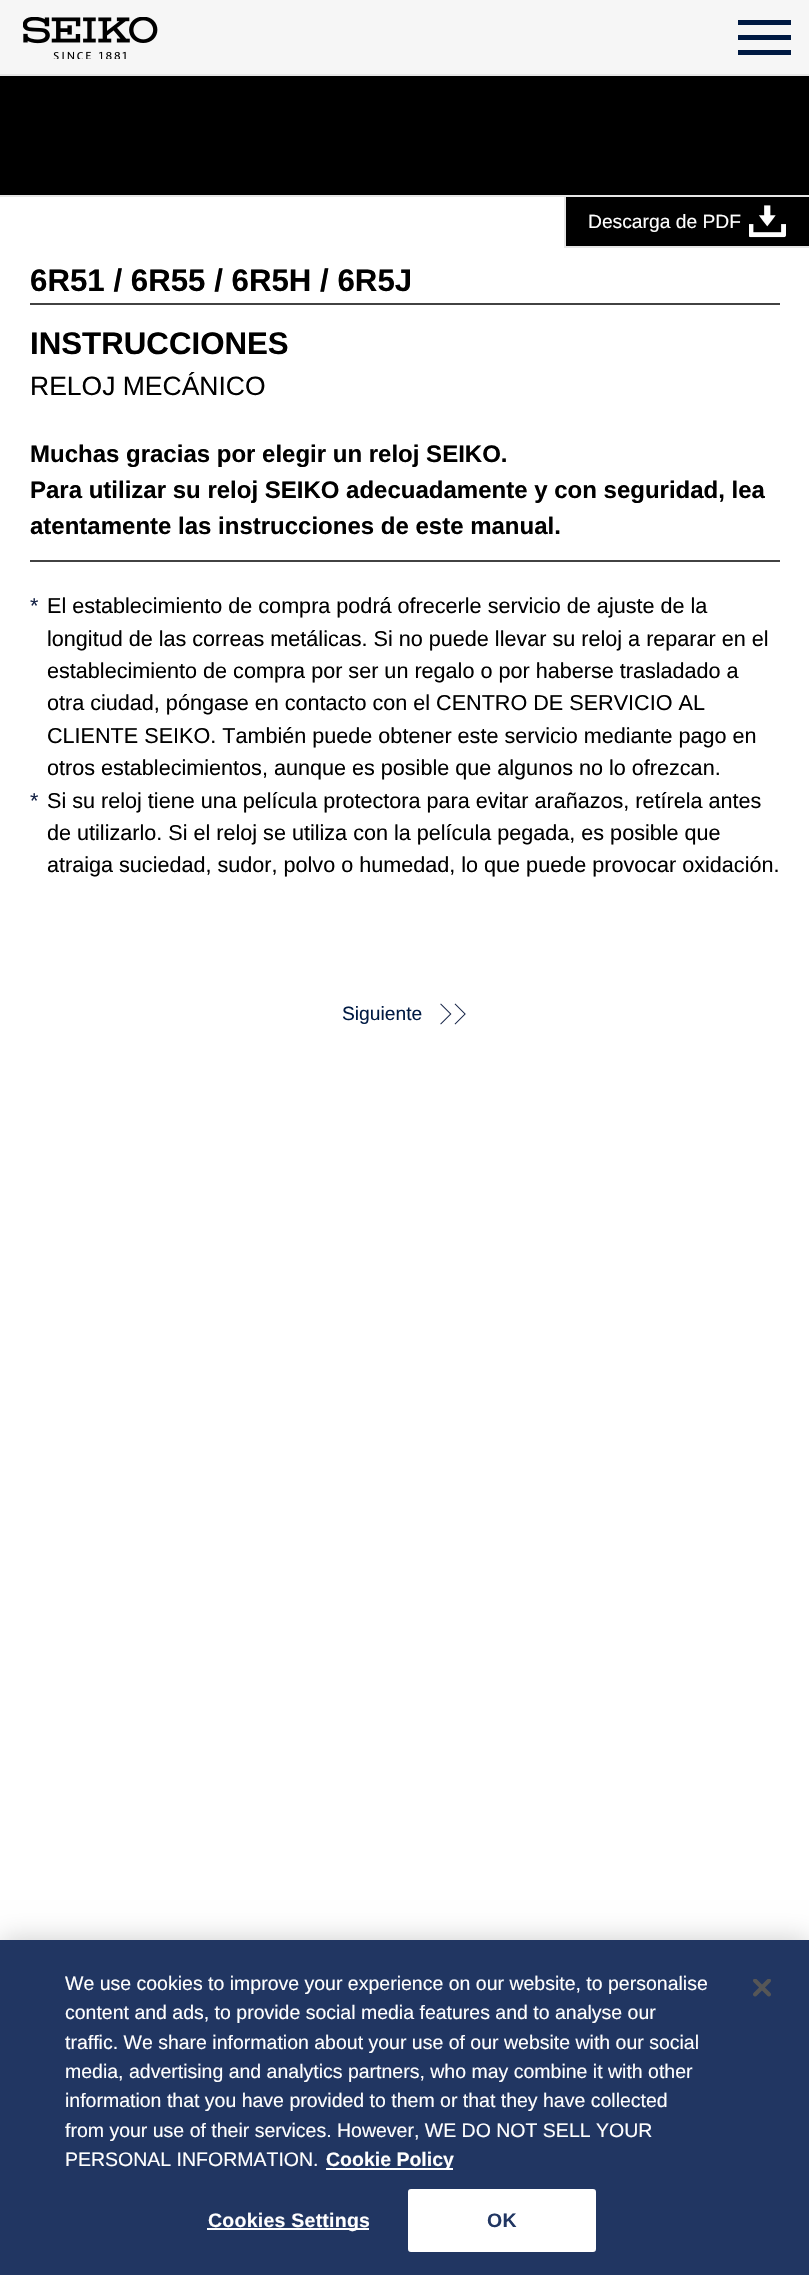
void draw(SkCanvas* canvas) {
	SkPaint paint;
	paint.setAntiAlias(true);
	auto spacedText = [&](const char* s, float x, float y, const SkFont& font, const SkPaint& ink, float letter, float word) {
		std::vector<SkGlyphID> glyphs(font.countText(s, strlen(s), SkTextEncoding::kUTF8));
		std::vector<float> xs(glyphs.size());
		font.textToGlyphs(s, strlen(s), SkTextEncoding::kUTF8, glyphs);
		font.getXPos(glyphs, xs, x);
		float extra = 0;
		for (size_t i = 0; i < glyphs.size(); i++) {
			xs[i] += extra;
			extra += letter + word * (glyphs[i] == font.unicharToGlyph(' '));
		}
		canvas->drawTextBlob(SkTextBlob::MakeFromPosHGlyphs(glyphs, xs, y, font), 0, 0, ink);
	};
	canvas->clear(0xffffffff);
	paint.setColor(0xfff6f6f6);
	canvas->drawRect(SkRect::MakeXYWH(0, 0, 809, 74), paint);
	paint.setColor(0xffe6e6e6);
	canvas->drawRect(SkRect::MakeXYWH(0, 74, 809, 2), paint);
	canvas->drawImageRect(SkImages::DeferredFromEncodedData(SkData::MakeFromFileName("img1.png")), SkRect::MakeXYWH(23, 17, 135, 42), SkSamplingOptions());
	paint.setColor(0xff001a43);
	canvas->drawRect(SkRect::MakeXYWH(738, 20, 53, 5), paint);
	canvas->drawRect(SkRect::MakeXYWH(738, 35, 53, 5), paint);
	canvas->drawRect(SkRect::MakeXYWH(738, 50, 53, 5), paint);
	paint.setColor(0xff000000);
	canvas->drawRect(SkRect::MakeXYWH(0, 76, 809, 119), paint);
	paint.setColor(0xffe6e6e6);
	canvas->drawRect(SkRect::MakeXYWH(0, 195, 809, 2), paint);
	paint.setColor(0xff000000);
	canvas->drawRect(SkRect::MakeXYWH(566, 197, 243, 49), paint);
	canvas->drawImageRect(SkImages::DeferredFromEncodedData(SkData::MakeFromFileName("img2.png")), SkRect::MakeXYWH(749, 205, 37, 33), SkSamplingOptions());
	paint.setColor(0xffe6e6e6);
	canvas->drawRect(SkRect::MakeXYWH(564, 246, 245, 2), paint);
	canvas->drawRect(SkRect::MakeXYWH(564, 197, 2, 51), paint);
	SkFont f1(fontMgr->matchFamilyStyle("Liberation Sans", SkFontStyle::Normal()), 19.25);
	f1.setSubpixel(true);
	paint.setColor(0xffffffff);
	canvas->drawString("Descarga de PDF", 588, 228, f1, paint);
	paint.setColor(0xff424242);
	canvas->drawRect(SkRect::MakeXYWH(30, 303, 750, 2), paint);
	SkFont f2(fontMgr->matchFamilyStyle("Liberation Sans", SkFontStyle::Bold()), 31.25);
	f2.setSubpixel(true);
	paint.setColor(0xff000000);
	canvas->drawString("6R51 / 6R55 / 6R5H / 6R5J", 30, 291, f2, paint);
	canvas->drawString("INSTRUCCIONES", 30, 354, f2, paint);
	SkFont f3(fontMgr->matchFamilyStyle("Liberation Sans", SkFontStyle::Normal()), 26.5);
	f3.setSubpixel(true);
	canvas->drawString("RELOJ MECÁNICO", 30, 395, f3, paint);
	paint.setColor(0xff424242);
	canvas->drawRect(SkRect::MakeXYWH(30, 560, 750, 2), paint);
	SkFont f4(fontMgr->matchFamilyStyle("Liberation Sans", SkFontStyle::Bold()), 24);
	f4.setSubpixel(true);
	paint.setColor(0xff000000);
	canvas->drawString("Muchas gracias por elegir un reloj SEIKO.", 30, 462, f4, paint);
	canvas->drawString("Para utilizar su reloj SEIKO adecuadamente y con seguridad, lea", 30, 498, f4, paint);
	canvas->drawString("atentamente las instrucciones de este manual.", 30, 534, f4, paint);
	SkFont f5(fontMgr->matchFamilyStyle("Liberation Sans", SkFontStyle::Normal()), 21.6);
	f5.setSubpixel(true);
	paint.setColor(0xff142245);
	canvas->drawString("*", 30, 613, f5, paint);
	paint.setColor(0xff000000);
	canvas->drawString("El establecimiento de compra podrá ofrecerle servicio de ajuste de la", 47, 613, f5, paint);
	canvas->drawString("longitud de las correas metálicas. Si no puede llevar su reloj a reparar en el", 47, 646, f5, paint);
	canvas->drawString("establecimiento de compra por ser un regalo o por haberse trasladado a", 47, 678, f5, paint);
	canvas->drawString("otra ciudad, póngase en contacto con el CENTRO DE SERVICIO AL", 47, 710, f5, paint);
	canvas->drawString("CLIENTE SEIKO. También puede obtener este servicio mediante pago en", 47, 743, f5, paint);
	canvas->drawString("otros establecimientos, aunque es posible que algunos no lo ofrezcan.", 47, 775, f5, paint);
	paint.setColor(0xff142245);
	canvas->drawString("*", 30, 808, f5, paint);
	paint.setColor(0xff000000);
	canvas->drawString("Si su reloj tiene una película protectora para evitar arañazos, retírela antes", 47, 808, f5, paint);
	canvas->drawString("de utilizarlo. Si el reloj se utiliza con la película pegada, es posible que", 47, 840, f5, paint);
	canvas->drawString("atraiga suciedad, sudor, polvo o humedad, lo que puede provocar oxidación.", 47, 872, f5, paint);
	canvas->drawImageRect(SkImages::DeferredFromEncodedData(SkData::MakeFromFileName("img3.png")), SkRect::MakeXYWH(440, 1003, 26, 22), SkSamplingOptions());
	paint.setColor(0xff001a43);
	canvas->drawString("Siguiente", 342, 1020, f1, paint);
	paint.setColor(0x33000000);
	paint.setMaskFilter(SkMaskFilter::MakeBlur(kNormal_SkBlurStyle, 13.5));
	canvas->drawRect(SkRect::MakeXYWH(0, 1940, 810, 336), paint);
	paint.setMaskFilter(nullptr);
	paint.setColor(0xff213662);
	canvas->drawRect(SkRect::MakeXYWH(0, 1940, 809, 335), paint);
	SkFont f6(fontMgr->matchFamilyStyle("Liberation Sans", SkFontStyle::Normal()), 19.5);
	f6.setSubpixel(true);
	paint.setColor(0xffffffff);
	canvas->drawString("We use cookies to improve your experience on our website, to personalise", 65, 1990, f6, paint);
	canvas->drawString("content and ads, to provide social media features and to analyse our", 65, 2019, f6, paint);
	canvas->drawString("traffic. We share information about your use of our website with our social", 65, 2049, f6, paint);
	canvas->drawString("media, advertising and analytics partners, who may combine it with other", 65, 2078, f6, paint);
	canvas->drawString("information that you have provided to them or that they have collected", 65, 2107, f6, paint);
	canvas->drawString("from your use of their services. However, WE DO NOT SELL YOUR", 65, 2137, f6, paint);
	canvas->drawString("PERSONAL INFORMATION.", 65, 2166, f6, paint);
	canvas->drawRect(SkRect::MakeXYWH(326, 2168, 127, 2), paint);
	SkFont f7(fontMgr->matchFamilyStyle("Liberation Sans", SkFontStyle::Bold()), 19.5);
	f7.setSubpixel(true);
	canvas->drawString("Cookie Policy", 326, 2166, f7, paint);
	canvas->drawRect(SkRect::MakeXYWH(207, 2228, 162, 2), paint);
	spacedText("Cookies Settings", 208, 2227, f7, paint, 0.25, 0);
	canvas->drawRoundRect(SkRect::MakeXYWH(409, 2190, 186, 61), 2, 2, paint);
	paint.setStroke(true);
	paint.setStrokeWidth(2);
	canvas->drawRoundRect(SkRect::MakeXYWH(409, 2190, 186, 61), 2, 2, paint);
	paint.setStroke(false);
	paint.setColor(0xff213662);
	spacedText("OK", 487, 2227, f7, paint, 0.25, 0);
	canvas->drawImageRect(SkImages::DeferredFromEncodedData(SkData::MakeFromFileName("img4.png")), SkRect::MakeXYWH(753, 1979, 18, 18), SkSamplingOptions());
}
